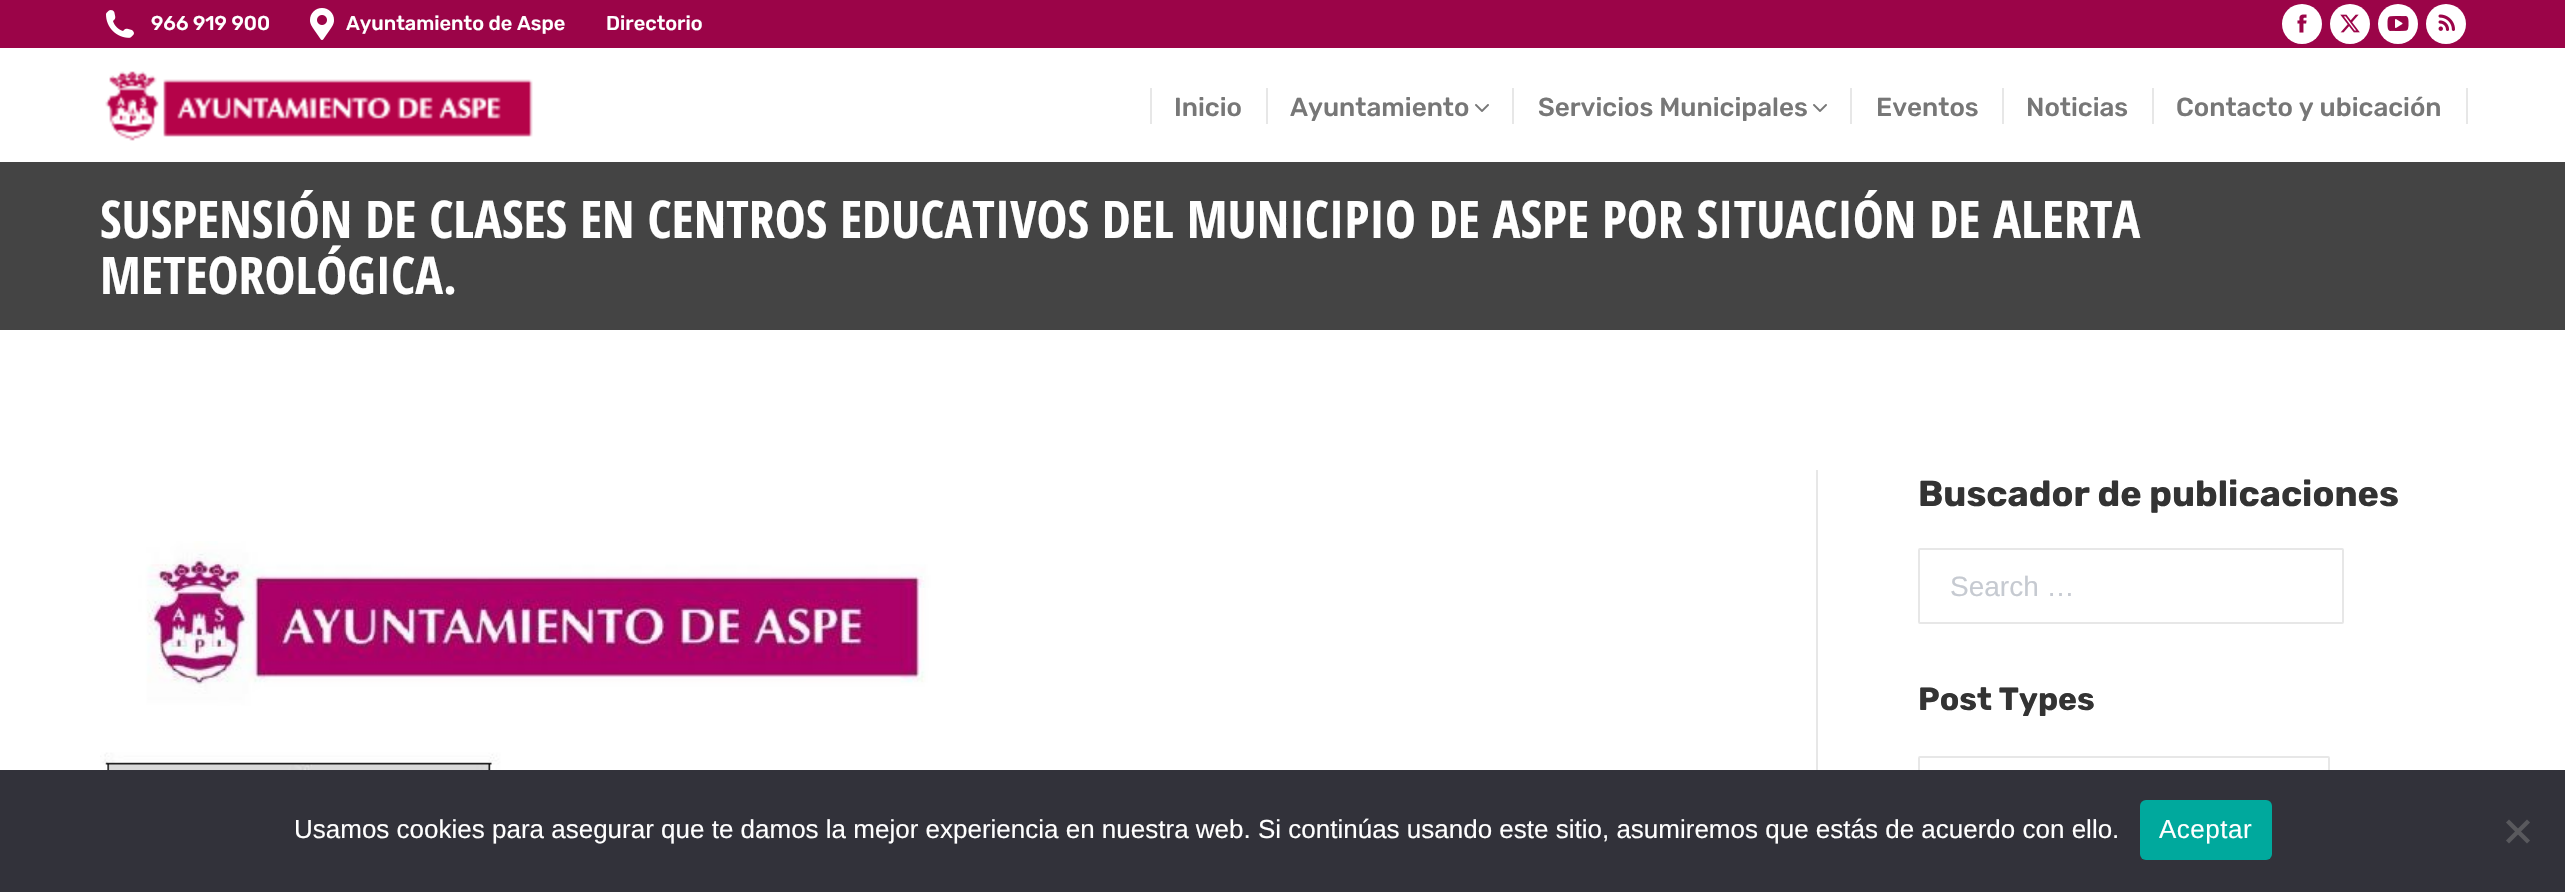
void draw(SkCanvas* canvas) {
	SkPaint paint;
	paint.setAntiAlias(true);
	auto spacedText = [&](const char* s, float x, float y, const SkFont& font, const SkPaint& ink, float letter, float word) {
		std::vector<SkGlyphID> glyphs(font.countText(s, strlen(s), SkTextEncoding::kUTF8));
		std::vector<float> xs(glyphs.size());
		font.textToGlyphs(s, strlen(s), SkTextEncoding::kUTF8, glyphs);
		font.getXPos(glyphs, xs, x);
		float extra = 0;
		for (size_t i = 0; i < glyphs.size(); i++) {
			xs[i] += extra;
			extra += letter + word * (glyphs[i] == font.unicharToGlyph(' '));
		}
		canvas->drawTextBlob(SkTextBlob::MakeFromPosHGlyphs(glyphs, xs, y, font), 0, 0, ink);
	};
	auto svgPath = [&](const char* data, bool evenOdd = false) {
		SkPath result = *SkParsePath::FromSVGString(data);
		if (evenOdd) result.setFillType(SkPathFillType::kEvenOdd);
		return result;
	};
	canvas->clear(0xffffffff);
	paint.setColor(0xff9b0448);
	canvas->drawRect(SkRect::MakeXYWH(0, 0, 2565, 48), paint);
	canvas->drawImageRect(SkImages::DeferredFromEncodedData(SkData::MakeFromFileName("img1.png")), SkRect::MakeXYWH(106, 10, 28, 28), SkSamplingOptions());
	SkFont f1(fontMgr->matchFamilyStyle("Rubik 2", SkFontStyle(300, SkFontStyle::kNormal_Width, SkFontStyle::kUpright_Slant)), 20);
	f1.setSubpixel(true);
	paint.setColor(0xffffffff);
	canvas->drawString("966 919 900", 151, 30, f1, paint);
	canvas->drawImageRect(SkImages::DeferredFromEncodedData(SkData::MakeFromFileName("img2.png")), SkRect::MakeXYWH(310, 8, 24, 32), SkSamplingOptions());
	canvas->drawString("Ayuntamiento de Aspe", 346, 30, f1, paint);
	canvas->drawString("Directorio", 606, 30, f1, paint);
	canvas->drawCircle(2302, 24, 20, paint);
	canvas->drawImageRect(SkImages::DeferredFromEncodedData(SkData::MakeFromFileName("img3.png")), SkRect::MakeXYWH(2297, 14, 10, 19), SkSamplingOptions());
	canvas->drawCircle(2350, 24, 20, paint);
	canvas->drawImageRect(SkImages::DeferredFromEncodedData(SkData::MakeFromFileName("img4.png")), SkRect::MakeXYWH(2340, 14, 20, 19), SkSamplingOptions());
	canvas->drawCircle(2398, 24, 20, paint);
	canvas->drawImageRect(SkImages::DeferredFromEncodedData(SkData::MakeFromFileName("img5.png")), SkRect::MakeXYWH(2387, 16, 22, 15), SkSamplingOptions());
	canvas->drawCircle(2446, 24, 20, paint);
	canvas->drawImageRect(SkImages::DeferredFromEncodedData(SkData::MakeFromFileName("img6.png")), SkRect::MakeXYWH(2438, 14, 17, 17), SkSamplingOptions());
	canvas->drawImageRect(SkImages::DeferredFromEncodedData(SkData::MakeFromFileName("img7.png")), SkRect::MakeXYWH(105, 71, 428, 70), SkSamplingOptions());
	paint.setColor(0xffe7e7e7);
	canvas->drawRect(SkRect::MakeXYWH(1150, 88, 2, 36), paint);
	SkFont f2(fontMgr->matchFamilyStyle("Rubik 2", SkFontStyle(300, SkFontStyle::kNormal_Width, SkFontStyle::kUpright_Slant)), 26);
	f2.setSubpixel(true);
	paint.setColor(0xff777777);
	canvas->drawString("Inicio", 1174, 116, f2, paint);
	paint.setColor(0xffe7e7e7);
	canvas->drawRect(SkRect::MakeXYWH(1266, 88, 2, 36), paint);
	paint.setColor(0xff777777);
	canvas->drawString("Ayuntamiento", 1290, 116, f2, paint);
	canvas->drawImageRect(SkImages::DeferredFromEncodedData(SkData::MakeFromFileName("img8.png")), SkRect::MakeXYWH(1475, 104, 14, 8), SkSamplingOptions());
	paint.setColor(0xffe7e7e7);
	canvas->drawRect(SkRect::MakeXYWH(1512, 88, 2, 36), paint);
	paint.setColor(0xff777777);
	canvas->drawString("Servicios Municipales", 1538, 116, f2, paint);
	canvas->drawImageRect(SkImages::DeferredFromEncodedData(SkData::MakeFromFileName("img8.png")), SkRect::MakeXYWH(1813, 104, 14, 8), SkSamplingOptions());
	paint.setColor(0xffe7e7e7);
	canvas->drawRect(SkRect::MakeXYWH(1850, 88, 2, 36), paint);
	paint.setColor(0xff777777);
	canvas->drawString("Eventos", 1876, 116, f2, paint);
	paint.setColor(0xffe7e7e7);
	canvas->drawRect(SkRect::MakeXYWH(2002, 88, 2, 36), paint);
	paint.setColor(0xff777777);
	canvas->drawString("Noticias", 2026, 116, f2, paint);
	paint.setColor(0xffe7e7e7);
	canvas->drawRect(SkRect::MakeXYWH(2152, 88, 2, 36), paint);
	paint.setColor(0xff777777);
	canvas->drawString("Contacto y ubicación", 2176, 116, f2, paint);
	paint.setColor(0xffe7e7e7);
	canvas->drawRect(SkRect::MakeXYWH(2466, 88, 2, 36), paint);
	paint.setColor(0xff444444);
	canvas->drawRect(SkRect::MakeXYWH(0, 162, 2565, 168), paint);
	canvas->save();
	canvas->clipRect(SkRect::MakeXYWH(100, 190, 2366, 112));
	SkFont f3(fontMgr->matchFamilyStyle("Open Sans Condensed", SkFontStyle::Bold()), 52);
	f3.setSubpixel(true);
	paint.setColor(0xffffffff);
	canvas->drawString("SUSPENSIÓN DE CLASES EN CENTROS EDUCATIVOS DEL MUNICIPIO DE ASPE POR SITUACIÓN DE ALERTA", 100, 238, f3, paint);
	canvas->restore();
	canvas->drawString("METEOROLÓGICA.", 100, 294, f3, paint);
	canvas->drawImageRect(SkImages::DeferredFromEncodedData(SkData::MakeFromFileName("img9.png")), SkRect::MakeXYWH(100, 541, 1062, 229), SkSamplingOptions());
	paint.setColor(0xffe7e7e7);
	canvas->drawRect(SkRect::MakeXYWH(1816, 470, 2, 300), paint);
	SkFont f4(fontMgr->matchFamilyStyle("Rubik", SkFontStyle(300, SkFontStyle::kNormal_Width, SkFontStyle::kUpright_Slant)), 36);
	f4.setSubpixel(true);
	paint.setColor(0xff333333);
	canvas->drawString("Buscador de publicaciones", 1918, 506, f4, paint);
	paint.setStroke(true);
	paint.setStrokeWidth(2);
	paint.setColor(0xffe7e7e7);
	canvas->drawRoundRect(SkRect::MakeXYWH(1919, 549, 424, 74), 1, 1, paint);
	SkFont f5(fontMgr->matchFamilyStyle("Liberation Sans", SkFontStyle::Normal()), 28);
	f5.setSubpixel(true);
	paint.setStroke(false);
	paint.setColor(0xffc6cad1);
	canvas->drawString("Search …", 1950, 596, f5, paint);
	SkFont f6(fontMgr->matchFamilyStyle("Rubik", SkFontStyle(300, SkFontStyle::kNormal_Width, SkFontStyle::kUpright_Slant)), 32);
	f6.setSubpixel(true);
	paint.setColor(0xff333333);
	canvas->drawString("Post Types", 1918, 710, f6, paint);
	paint.setStroke(true);
	paint.setColor(0xffe7e7e7);
	canvas->drawRoundRect(SkRect::MakeXYWH(1919, 757, 410, 74), 1, 1, paint);
	paint.setStroke(false);
	paint.setColor(0xff32323a);
	canvas->drawRect(SkRect::MakeXYWH(0, 770, 2565, 122), paint);
	SkFont f7(fontMgr->matchFamilyStyle("Liberation Sans", SkFontStyle::Normal()), 26);
	f7.setSubpixel(true);
	paint.setColor(0xffffffff);
	canvas->drawString("Usamos cookies para asegurar que te damos la mejor experiencia en nuestra web. Si continúas usando este sitio, asumiremos que estás de acuerdo con ello.", 294, 838, f7, paint);
	paint.setColor(0xff00a99d);
	canvas->drawRoundRect(SkRect::MakeXYWH(2140, 800, 132, 60), 6, 6, paint);
	paint.setColor(0xffffffff);
	spacedText("Aceptar", 2159, 838, f7, paint, 0.5, 0);
	paint.setColor(0xff59595d);
	canvas->drawPath(svgPath("M2527 819.5L2530 822.5L2509 843.5L2506 840.5Z"), paint);
	canvas->drawPath(svgPath("M2506 822.5L2509 819.5L2530 840.5L2527 843.5Z"), paint);
}
